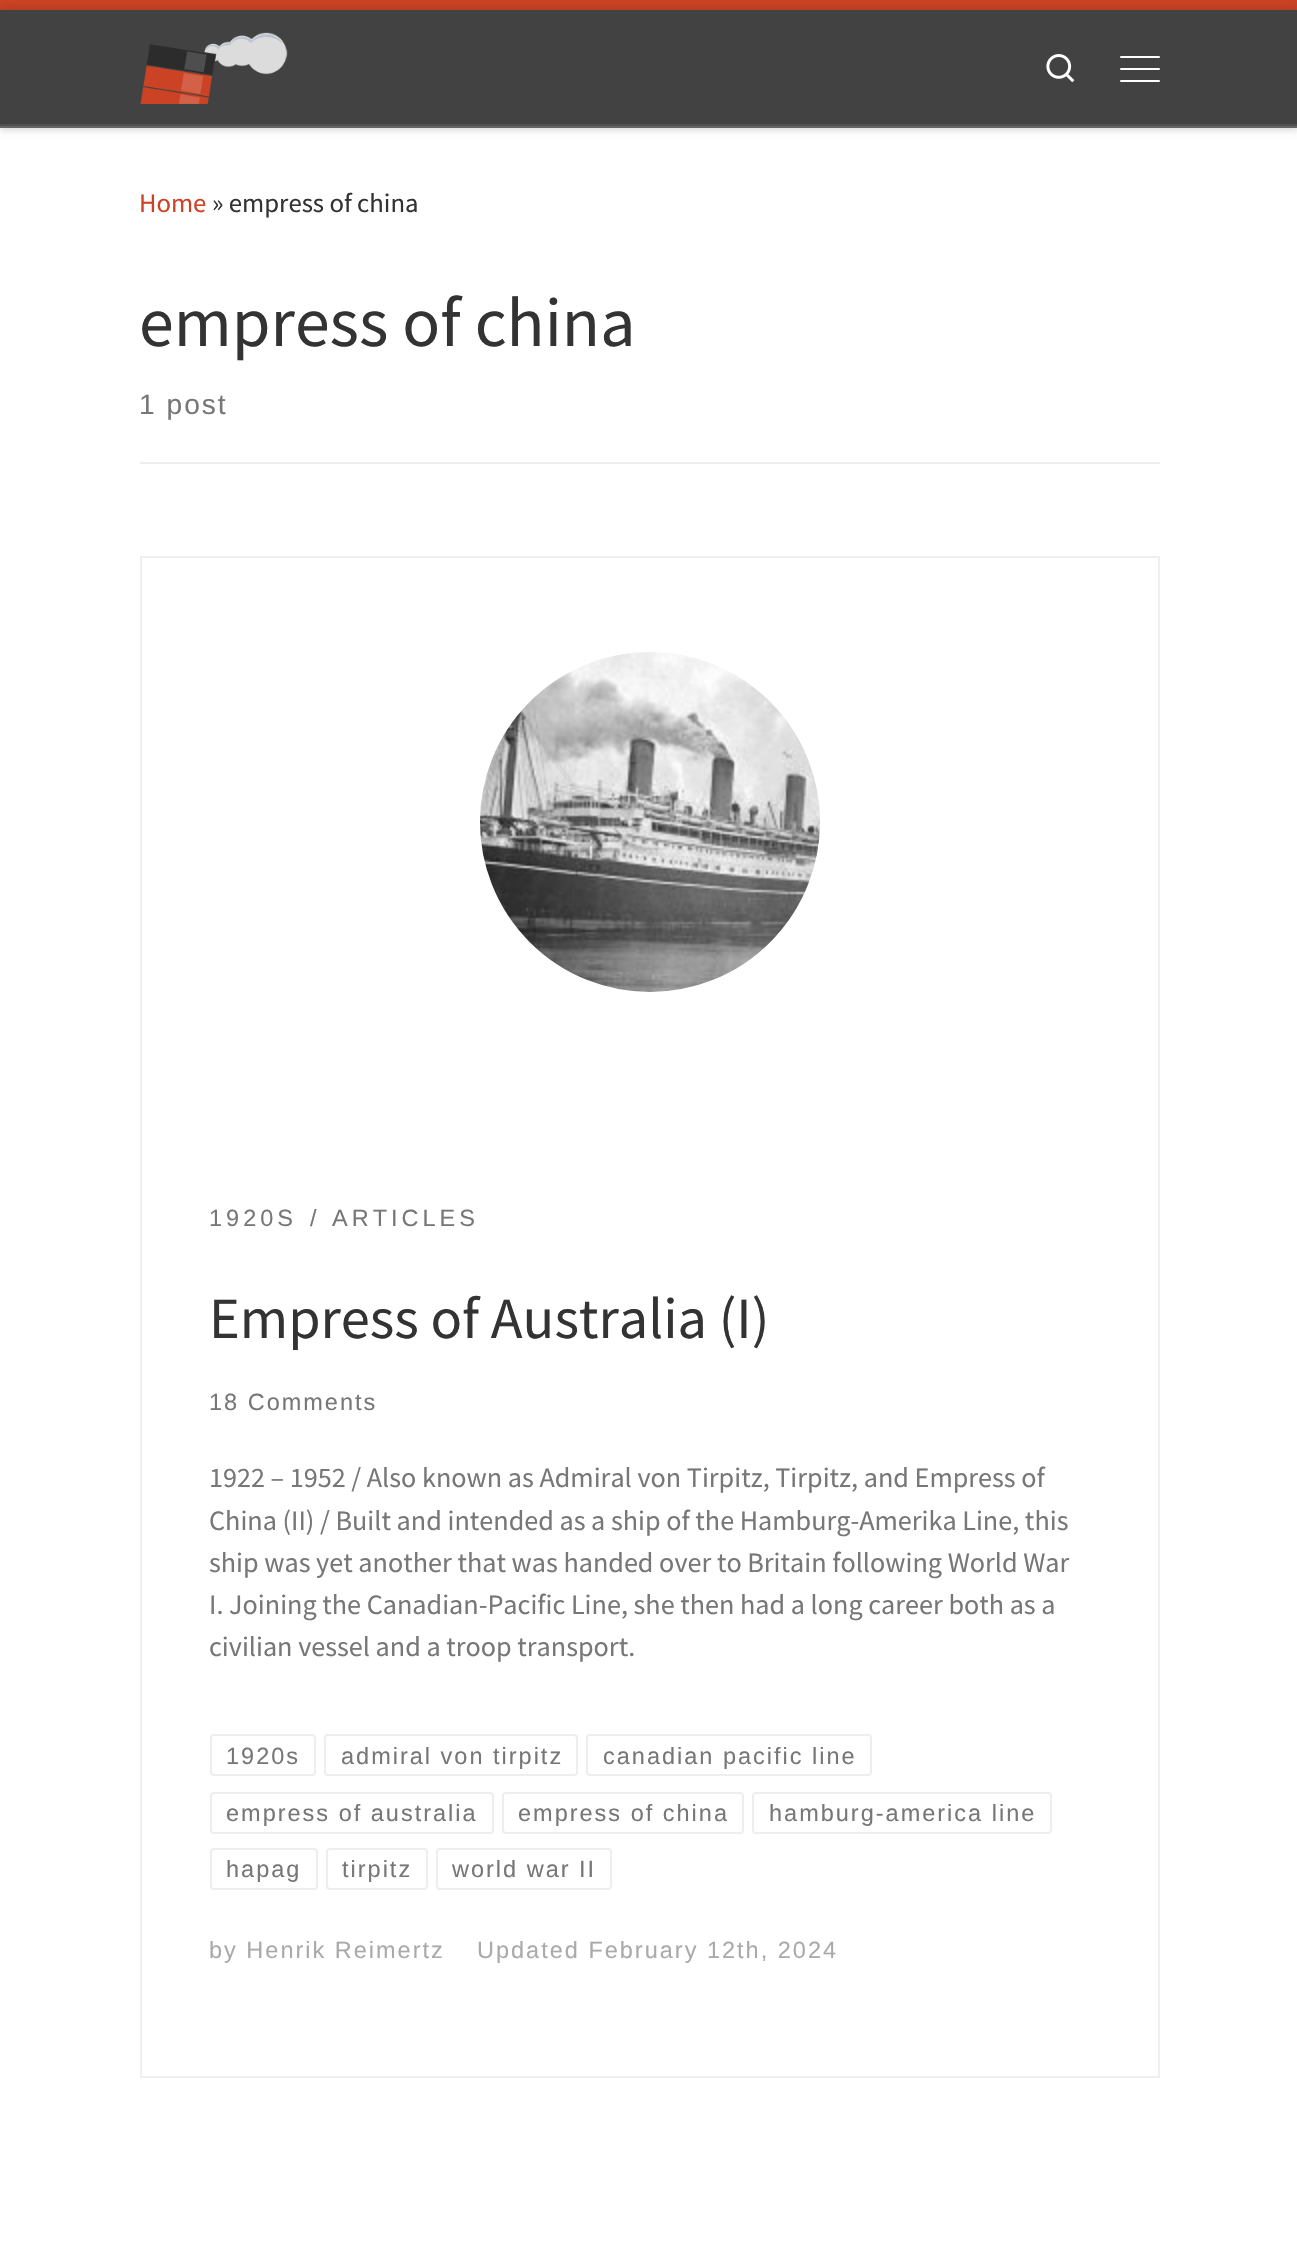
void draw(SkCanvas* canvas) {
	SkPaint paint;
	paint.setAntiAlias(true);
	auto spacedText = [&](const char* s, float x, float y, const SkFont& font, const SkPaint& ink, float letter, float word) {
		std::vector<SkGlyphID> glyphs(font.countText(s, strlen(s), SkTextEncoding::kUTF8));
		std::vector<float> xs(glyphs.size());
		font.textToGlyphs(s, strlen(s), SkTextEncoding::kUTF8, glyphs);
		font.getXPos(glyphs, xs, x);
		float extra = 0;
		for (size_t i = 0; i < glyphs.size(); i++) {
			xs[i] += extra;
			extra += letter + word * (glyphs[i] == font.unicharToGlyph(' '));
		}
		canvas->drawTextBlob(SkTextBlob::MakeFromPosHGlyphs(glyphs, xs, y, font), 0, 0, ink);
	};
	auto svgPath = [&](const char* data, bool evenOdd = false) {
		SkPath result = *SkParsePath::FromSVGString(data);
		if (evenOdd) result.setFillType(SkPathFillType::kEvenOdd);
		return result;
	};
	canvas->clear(0xffffffff);
	paint.setColor(0x14666666);
	paint.setMaskFilter(SkMaskFilter::MakeBlur(kNormal_SkBlurStyle, 2));
	canvas->drawRect(SkRect::MakeXYWH(0, 4, 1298, 128), paint);
	paint.setMaskFilter(nullptr);
	paint.setColor(0xff424242);
	canvas->drawRect(SkRect::MakeXYWH(0, 10, 1297, 114), paint);
	paint.setColor(0xffcb4324);
	canvas->drawRect(SkRect::MakeXYWH(0, 0, 1297, 10), paint);
	paint.setColor(0xff6d6d6d);
	canvas->drawRect(SkRect::MakeXYWH(0, 126, 1297, 2), paint);
	canvas->save();
	canvas->clipPath(svgPath("M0 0H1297V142H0ZM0 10H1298V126H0Z", true), true);
	paint.setColor(0x33000000);
	paint.setMaskFilter(SkMaskFilter::MakeBlur(kNormal_SkBlurStyle, 5));
	canvas->drawRect(SkRect::MakeXYWH(0, 10, 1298, 116), paint);
	paint.setMaskFilter(nullptr);
	canvas->restore();
	canvas->drawImageRect(SkImages::DeferredFromEncodedData(SkData::MakeFromFileName("img1.png")), SkRect::MakeXYWH(140, 32, 148, 72), SkSamplingOptions());
	canvas->drawImageRect(SkImages::DeferredFromEncodedData(SkData::MakeFromFileName("img2.png")), SkRect::MakeXYWH(1046, 54, 29, 29), SkSamplingOptions());
	paint.setColor(0xffffffff);
	canvas->drawRoundRect(SkRect::MakeXYWH(1120, 56, 40, 2), 1, 1, paint);
	canvas->drawRoundRect(SkRect::MakeXYWH(1120, 68, 40, 2), 1, 1, paint);
	canvas->drawRoundRect(SkRect::MakeXYWH(1120, 80, 40, 2), 1, 1, paint);
	paint.setColor(0xff505050);
	canvas->drawRect(SkRect::MakeXYWH(0, 124, 1297, 2), paint);
	SkFont f1(fontMgr->matchFamilyStyle("Source Sans Pro", SkFontStyle::Normal()), 26.75);
	f1.setSubpixel(true);
	paint.setColor(0xffcb4324);
	canvas->drawString("Home", 139, 212, f1, paint);
	paint.setColor(0xff333333);
	canvas->drawString("» empress of china", 212, 212, f1, paint);
	SkFont f2(fontMgr->matchFamilyStyle("Source Sans Pro", SkFontStyle::Normal()), 70);
	f2.setSubpixel(true);
	canvas->drawString("empress of china", 139, 346, f2, paint);
	SkFont f3(fontMgr->matchFamilyStyle("Liberation Sans", SkFontStyle::Normal()), 28.15);
	f3.setSubpixel(true);
	paint.setColor(0xff777777);
	spacedText("1 post", 139, 414, f3, paint, 2, 0);
	paint.setColor(0xffeceeef);
	canvas->drawRect(SkRect::MakeXYWH(140, 462, 1020, 2), paint);
	canvas->drawImageRect(SkImages::DeferredFromEncodedData(SkData::MakeFromFileName("img3.png")), SkRect::MakeXYWH(480, 652, 340, 340), SkSamplingOptions());
	canvas->save();
	canvas->clipRect(SkRect::MakeXYWH(380, 572, 540, 500));
	paint.setStroke(true);
	paint.setStrokeWidth(300);
	paint.setColor(0xffffffff);
	canvas->drawCircle(650, 822, 320, paint);
	canvas->restore();
	paint.setStrokeWidth(2);
	paint.setColor(0xffeceeef);
	canvas->drawRoundRect(SkRect::MakeXYWH(211, 1735, 104, 40), 3, 3, paint);
	canvas->drawRoundRect(SkRect::MakeXYWH(325, 1735, 252, 40), 3, 3, paint);
	canvas->drawRoundRect(SkRect::MakeXYWH(587, 1735, 284, 40), 3, 3, paint);
	canvas->drawRoundRect(SkRect::MakeXYWH(211, 1793, 282, 40), 3, 3, paint);
	canvas->drawRoundRect(SkRect::MakeXYWH(503, 1793, 240, 40), 3, 3, paint);
	canvas->drawRoundRect(SkRect::MakeXYWH(753, 1793, 298, 40), 3, 3, paint);
	canvas->drawRoundRect(SkRect::MakeXYWH(211, 1849, 106, 40), 3, 3, paint);
	canvas->drawRoundRect(SkRect::MakeXYWH(327, 1849, 100, 40), 3, 3, paint);
	canvas->drawRoundRect(SkRect::MakeXYWH(437, 1849, 174, 40), 3, 3, paint);
	paint.setColor(0xffefefef);
	canvas->drawRect(SkRect::MakeXYWH(141, 557, 1018, 1520), paint);
	SkFont f4(fontMgr->matchFamilyStyle("Liberation Sans", SkFontStyle::Normal()), 23.5);
	f4.setSubpixel(true);
	paint.setStroke(false);
	paint.setColor(0xff777777);
	spacedText("1920S", 209, 1226, f4, paint, 4, 0);
	spacedText("/", 310, 1226, f4, paint, 4, 0);
	spacedText("ARTICLES", 332, 1226, f4, paint, 4, 0);
	SkFont f5(fontMgr->matchFamilyStyle("Source Sans Pro", SkFontStyle::Normal()), 58.4);
	f5.setSubpixel(true);
	paint.setColor(0xff333333);
	canvas->drawString("Empress of Australia (I)", 209, 1338, f5, paint);
	paint.setColor(0xff777777);
	spacedText("18 Comments", 209, 1410, f4, paint, 2, 0);
	SkFont f6(fontMgr->matchFamilyStyle("Source Sans Pro", SkFontStyle::Normal()), 28.15);
	f6.setSubpixel(true);
	canvas->drawString("1922 – 1952 / Also known as Admiral von Tirpitz, Tirpitz, and Empress of", 209, 1487, f6, paint);
	canvas->drawString("China (II) / Built and intended as a ship of the Hamburg-Amerika Line, this", 209, 1530, f6, paint);
	canvas->drawString("ship was yet another that was handed over to Britain following World War", 209, 1572, f6, paint);
	canvas->drawString("I. Joining the Canadian-Pacific Line, she then had a long career both as a", 209, 1614, f6, paint);
	canvas->drawString("civilian vessel and a troop transport.", 209, 1656, f6, paint);
	spacedText("1920s", 226, 1764, f4, paint, 2, 0);
	spacedText("admiral von tirpitz", 341, 1764, f4, paint, 2, 0);
	spacedText("canadian pacific line", 603, 1764, f4, paint, 2, 0);
	spacedText("empress of australia", 226, 1821, f4, paint, 2, 0);
	spacedText("empress of china", 518, 1821, f4, paint, 2, 0);
	spacedText("hamburg-america line", 769, 1821, f4, paint, 2, 0);
	spacedText("hapag", 226, 1877, f4, paint, 2, 0);
	spacedText("tirpitz", 342, 1877, f4, paint, 2, 0);
	spacedText("world war II", 452, 1877, f4, paint, 2, 0);
	paint.setColor(0xffaaaaaa);
	spacedText("by Henrik Reimertz", 209, 1958, f4, paint, 2, 0);
	spacedText("Updated February 12th, 2024", 477, 1958, f4, paint, 2, 0);
}
